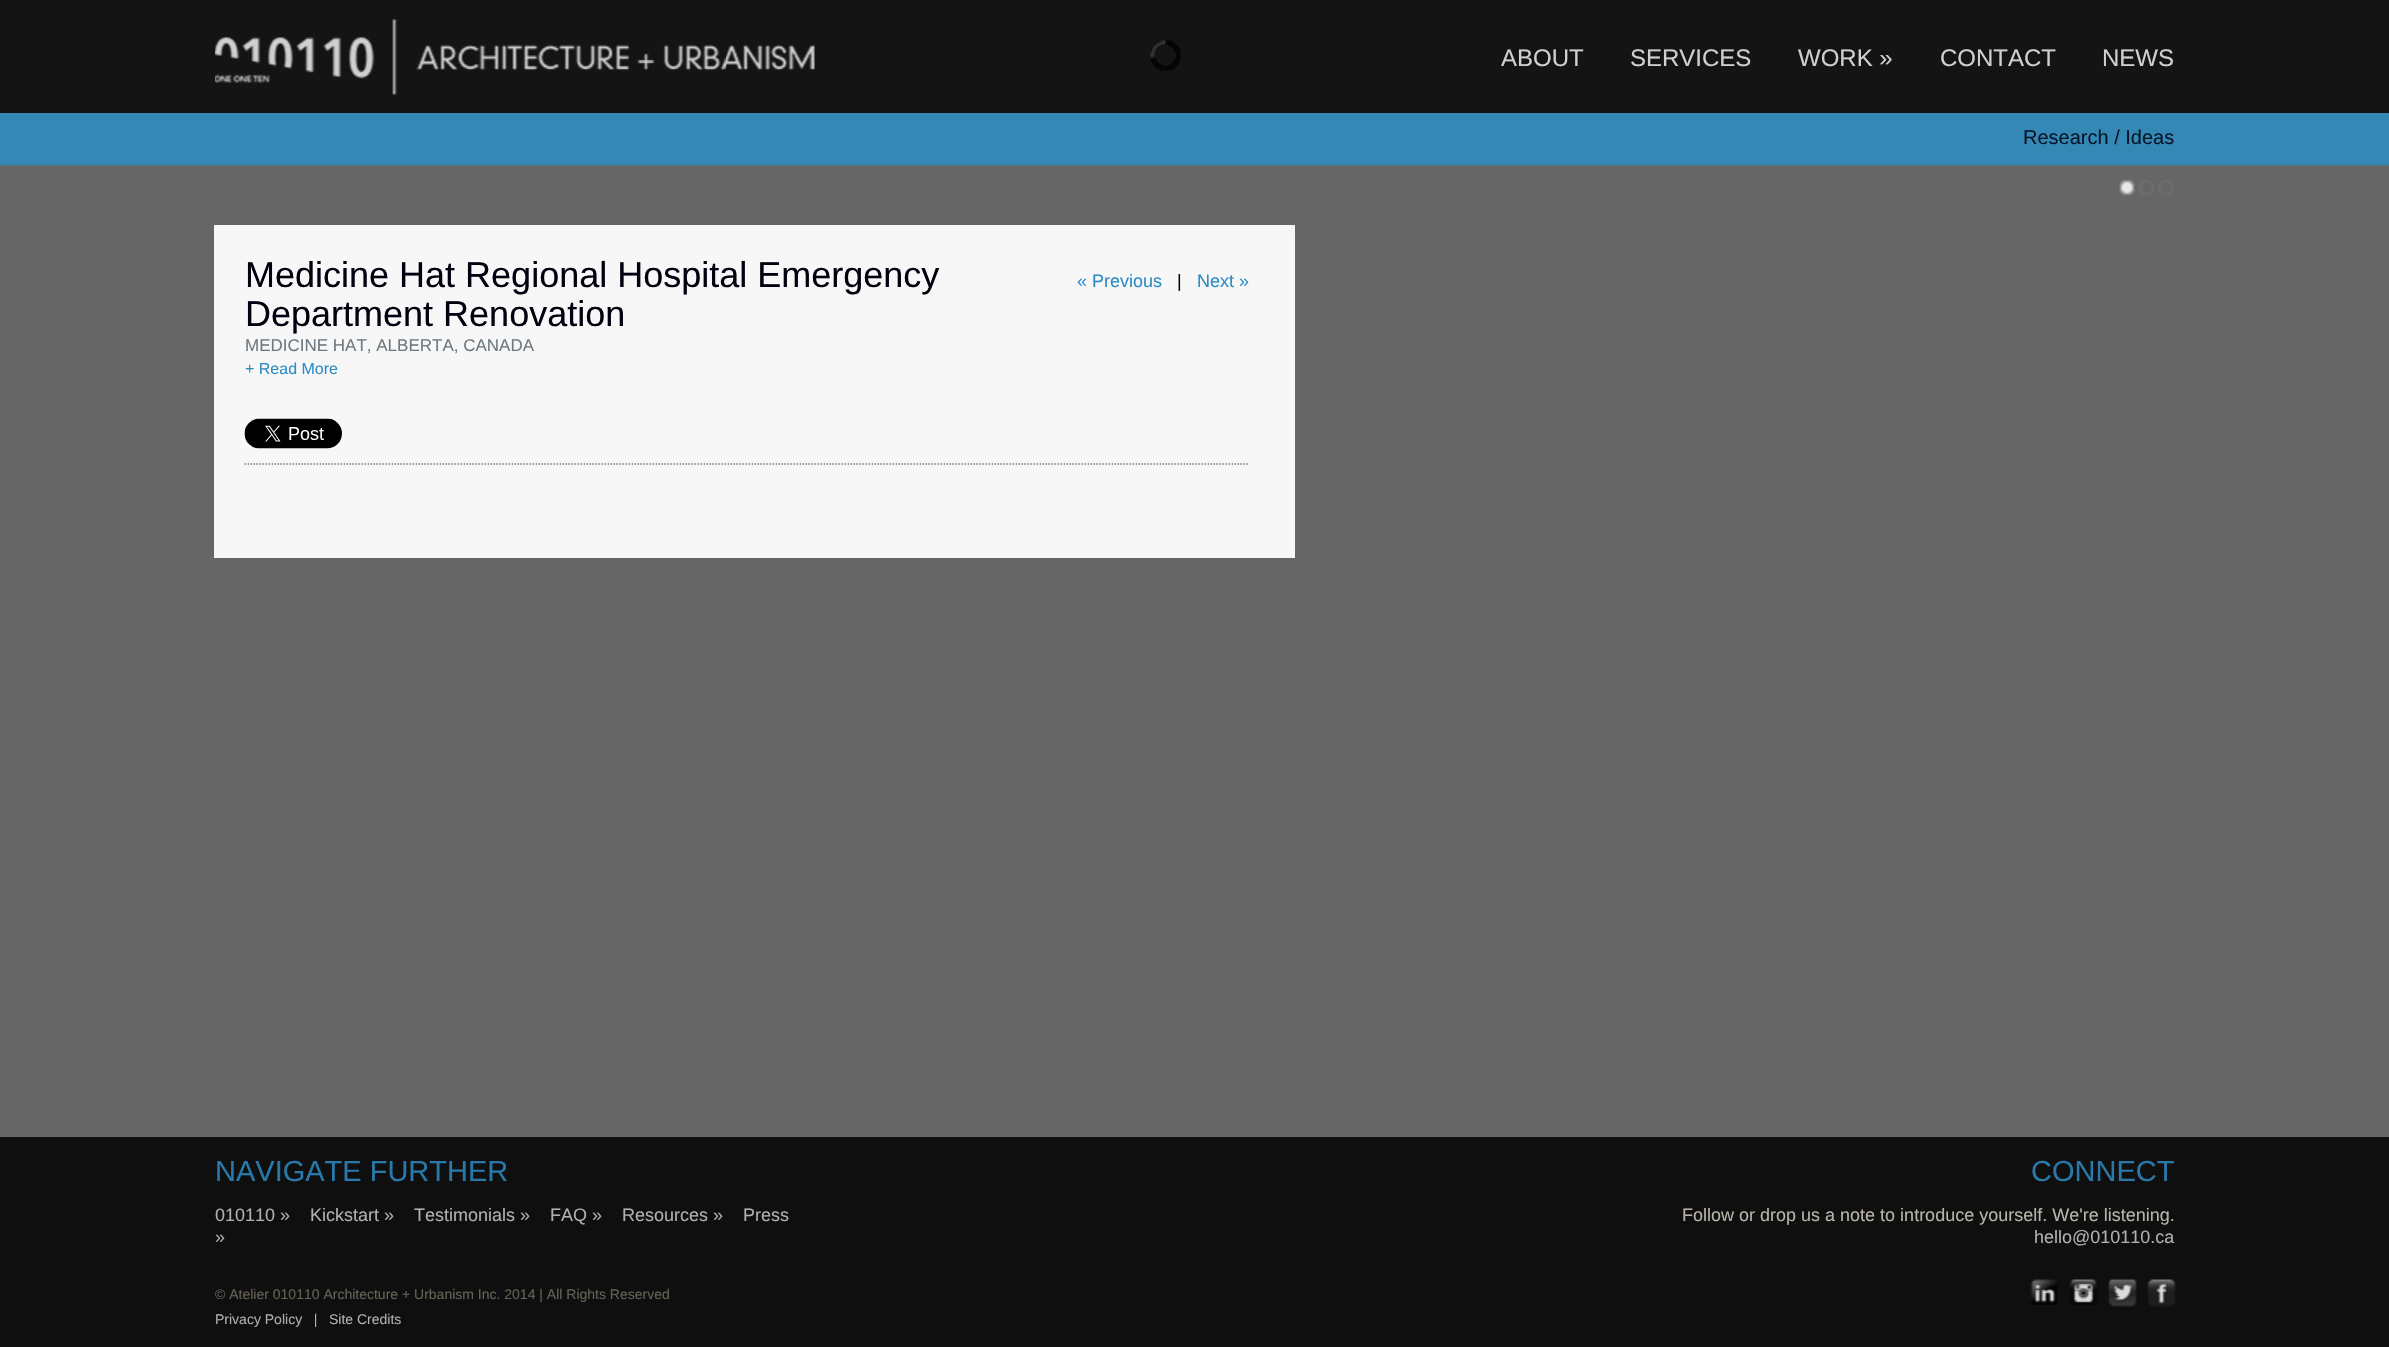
void draw(SkCanvas* canvas) {
	SkPaint paint;
	paint.setAntiAlias(true);
	auto svgPath = [&](const char* data, bool evenOdd = false) {
		SkPath result = *SkParsePath::FromSVGString(data);
		if (evenOdd) result.setFillType(SkPathFillType::kEvenOdd);
		return result;
	};
	canvas->clear(0xff666666);
	paint.setColor(0xff141414);
	canvas->drawRect(SkRect::MakeXYWH(0, 0, 2389, 113), paint);
	canvas->drawImageRect(SkImages::DeferredFromEncodedData(SkData::MakeFromFileName("img1.png")), SkRect::MakeXYWH(1150, 40, 31, 31), SkSamplingOptions());
	canvas->drawImageRect(SkImages::DeferredFromEncodedData(SkData::MakeFromFileName("img2.png")), SkRect::MakeXYWH(215, 19, 600, 76), SkSamplingOptions());
	SkFont f1(fontMgr->matchFamilyStyle("Liberation Sans", SkFontStyle::Normal()), 24);
	f1.setSubpixel(true);
	paint.setColor(0xffd0d0d0);
	canvas->drawString("ABOUT", 1501, 66, f1, paint);
	canvas->drawString("SERVICES", 1630, 66, f1, paint);
	canvas->drawString("WORK »", 1798, 66, f1, paint);
	canvas->drawString("CONTACT", 1940, 66, f1, paint);
	canvas->drawString("NEWS", 2102, 66, f1, paint);
	canvas->drawImageRect(SkImages::DeferredFromEncodedData(SkData::MakeFromFileName("img3.png")), SkRect::MakeXYWH(0, 113, 2389, 53), SkSamplingOptions());
	SkFont f2(fontMgr->matchFamilyStyle("Liberation Sans", SkFontStyle::Normal()), 20);
	f2.setSubpixel(true);
	paint.setColor(0xff081529);
	canvas->drawString("Research / Ideas", 2023, 144, f2, paint);
	canvas->drawImageRect(SkImages::DeferredFromEncodedData(SkData::MakeFromFileName("img4.png")), SkRect::MakeXYWH(2119, 179, 16, 17), SkSamplingOptions());
	canvas->drawImageRect(SkImages::DeferredFromEncodedData(SkData::MakeFromFileName("img5.png")), SkRect::MakeXYWH(2139, 180, 15, 15), SkSamplingOptions());
	canvas->drawImageRect(SkImages::DeferredFromEncodedData(SkData::MakeFromFileName("img6.png")), SkRect::MakeXYWH(2158, 180, 16, 15), SkSamplingOptions());
	paint.setColor(0xfff7f7f7);
	canvas->drawRect(SkRect::MakeXYWH(214, 225, 1081, 333), paint);
	SkFont f3(fontMgr->matchFamilyStyle("Liberation Sans", SkFontStyle::Normal()), 36);
	f3.setSubpixel(true);
	paint.setColor(0xff010110);
	canvas->drawString("Medicine Hat Regional Hospital Emergency", 245, 287, f3, paint);
	canvas->drawString("Department Renovation", 245, 326, f3, paint);
	SkFont f4(fontMgr->matchFamilyStyle("Liberation Sans", SkFontStyle::Normal()), 18);
	f4.setSubpixel(true);
	paint.setColor(0xff2c8cc4);
	canvas->drawString("« Previous", 1077, 287, f4, paint);
	paint.setColor(0xff010110);
	canvas->drawString("|", 1177, 287, f4, paint);
	paint.setColor(0xff2c8cc4);
	canvas->drawString("Next »", 1197, 287, f4, paint);
	SkFont f5(fontMgr->matchFamilyStyle("Liberation Sans", SkFontStyle::Normal()), 17);
	f5.setSubpixel(true);
	paint.setColor(0xff6d7981);
	canvas->drawString("MEDICINE HAT, ALBERTA, CANADA", 245, 351, f5, paint);
	SkFont f6(fontMgr->matchFamilyStyle("Liberation Sans", SkFontStyle::Normal()), 16);
	f6.setSubpixel(true);
	paint.setColor(0xff2c8cc4);
	canvas->drawString("+ Read More", 245, 374, f6, paint);
	canvas->drawImageRect(SkImages::DeferredFromEncodedData(SkData::MakeFromFileName("img7.png")), SkRect::MakeXYWH(244, 418, 98, 31), SkSamplingOptions());
	paint.setStroke(true);
	paint.setStrokeWidth(1.5);
	paint.setColor(0xff7c7c84);
	paint.setPathEffect(SkDashPathEffect::Make({{1.5f, 1.5f}}, 0));
	canvas->drawPath(svgPath("M244.5 464H1248"), paint);
	paint.setPathEffect(nullptr);
	paint.setStroke(false);
	paint.setColor(0xff0f0f0f);
	canvas->drawRect(SkRect::MakeXYWH(0, 1137, 2389, 210), paint);
	SkFont f7(fontMgr->matchFamilyStyle("Liberation Sans", SkFontStyle::Normal()), 29);
	f7.setSubpixel(true);
	paint.setColor(0xff2879a9);
	canvas->drawString("NAVIGATE FURTHER", 215, 1181, f7, paint);
	paint.setColor(0xffb0b0b0);
	canvas->drawString("010110 »", 215, 1221, f4, paint);
	canvas->drawString("Kickstart »", 310, 1221, f4, paint);
	canvas->drawString("Testimonials »", 414, 1221, f4, paint);
	canvas->drawString("FAQ »", 550, 1221, f4, paint);
	canvas->drawString("Resources »", 622, 1221, f4, paint);
	canvas->drawString("Press", 743, 1221, f4, paint);
	canvas->drawString("»", 215, 1243, f4, paint);
	SkFont f8(fontMgr->matchFamilyStyle("Liberation Sans", SkFontStyle::Normal()), 14);
	f8.setSubpixel(true);
	paint.setColor(0xff666256);
	canvas->drawString("© Atelier 010110 Architecture + Urbanism Inc. 2014 | All Rights Reserved", 215, 1299, f8, paint);
	paint.setColor(0xffb0b0b0);
	canvas->drawString("Privacy Policy   |", 215, 1324, f8, paint);
	canvas->drawString("Site Credits", 329, 1324, f8, paint);
	paint.setColor(0xff2879a9);
	canvas->drawString("CONNECT", 2031, 1181, f7, paint);
	paint.setColor(0xffb9b4aa);
	canvas->drawString("Follow or drop us a note to introduce yourself. We're listening.", 1682, 1221, f4, paint);
	paint.setColor(0xffb0b0b0);
	canvas->drawString("hello@010110.ca", 2034, 1243, f4, paint);
	canvas->drawImageRect(SkImages::DeferredFromEncodedData(SkData::MakeFromFileName("img8.png")), SkRect::MakeXYWH(2030, 1279, 28, 26), SkSamplingOptions());
	canvas->drawImageRect(SkImages::DeferredFromEncodedData(SkData::MakeFromFileName("img9.png")), SkRect::MakeXYWH(2069, 1279, 28, 26), SkSamplingOptions());
	canvas->drawImageRect(SkImages::DeferredFromEncodedData(SkData::MakeFromFileName("img10.png")), SkRect::MakeXYWH(2108, 1279, 29, 28), SkSamplingOptions());
	canvas->drawImageRect(SkImages::DeferredFromEncodedData(SkData::MakeFromFileName("img11.png")), SkRect::MakeXYWH(2147, 1279, 29, 28), SkSamplingOptions());
}
